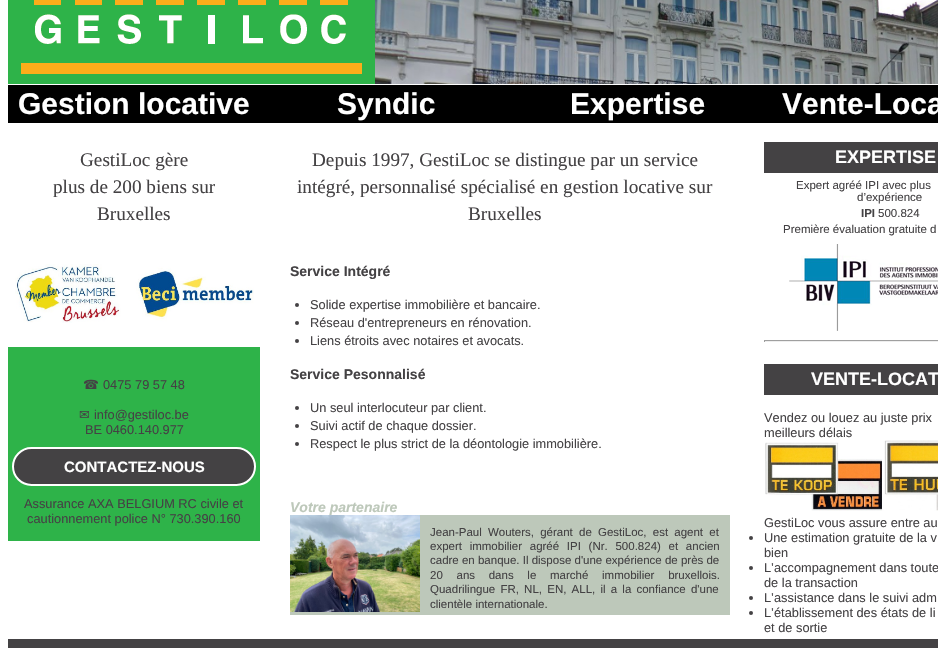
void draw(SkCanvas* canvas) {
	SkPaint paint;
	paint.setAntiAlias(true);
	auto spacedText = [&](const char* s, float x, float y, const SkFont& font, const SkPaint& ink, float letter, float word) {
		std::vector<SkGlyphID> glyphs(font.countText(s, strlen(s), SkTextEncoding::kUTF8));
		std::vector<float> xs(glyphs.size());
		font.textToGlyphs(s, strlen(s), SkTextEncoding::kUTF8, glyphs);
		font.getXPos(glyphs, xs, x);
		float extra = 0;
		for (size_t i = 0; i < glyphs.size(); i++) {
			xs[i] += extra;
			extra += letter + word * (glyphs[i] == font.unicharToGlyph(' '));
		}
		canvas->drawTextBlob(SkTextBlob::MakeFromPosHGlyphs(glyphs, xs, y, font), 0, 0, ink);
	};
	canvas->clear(0xffffffff);
	canvas->drawImageRect(SkImages::DeferredFromEncodedData(SkData::MakeFromFileName("img1.png")), SkRect::MakeXYWH(8, 0, 930, 84), SkSamplingOptions());
	paint.setColor(0xff000000);
	canvas->drawRect(SkRect::MakeXYWH(8, 85, 930, 38), paint);
	SkFont f1(fontMgr->matchFamilyStyle("Liberation Sans", SkFontStyle::Bold()), 30);
	f1.setSubpixel(true);
	paint.setColor(0xffffffff);
	canvas->drawString("Gestion locative", 18, 114, f1, paint);
	canvas->drawString("Syndic", 337, 114, f1, paint);
	canvas->drawString("Expertise", 570, 114, f1, paint);
	canvas->drawString("Vente-Loca", 782, 114, f1, paint);
	SkFont f2(fontMgr->matchFamilyStyle("Liberation Serif", SkFontStyle::Normal()), 19.2);
	f2.setSubpixel(true);
	paint.setColor(0xff444244);
	canvas->drawString("GestiLoc gère", 80, 166, f2, paint);
	canvas->drawString("plus de 200 biens sur", 53, 193, f2, paint);
	canvas->drawString("Bruxelles", 97, 220, f2, paint);
	canvas->drawImageRect(SkImages::DeferredFromEncodedData(SkData::MakeFromFileName("img2.png")), SkRect::MakeXYWH(15, 264, 239, 59), SkSamplingOptions());
	paint.setColor(0xff2eb349);
	canvas->drawRect(SkRect::MakeXYWH(8, 347, 252, 194), paint);
	SkFont f3(fontMgr->matchFamilyStyle("DejaVu Sans", SkFontStyle::Normal()), 12.8);
	f3.setSubpixel(true);
	paint.setColor(0xff444244);
	canvas->drawString("☎", 83, 389, f3, paint);
	SkFont f4(fontMgr->matchFamilyStyle("Liberation Sans", SkFontStyle::Normal()), 12.8);
	f4.setSubpixel(true);
	canvas->drawString("0475 79 57 48", 103, 389, f4, paint);
	canvas->drawString("✉", 79, 419, f3, paint);
	canvas->drawString("info@gestiloc.be", 94, 419, f4, paint);
	canvas->drawString("BE 0460.140.977", 85, 434, f4, paint);
	canvas->drawRoundRect(SkRect::MakeXYWH(13, 448, 242, 37), 18.5, 18.5, paint);
	paint.setStroke(true);
	paint.setStrokeWidth(2);
	paint.setColor(0xffffffff);
	canvas->drawRoundRect(SkRect::MakeXYWH(13, 448, 242, 37), 18.5, 18.5, paint);
	SkFont f5(fontMgr->matchFamilyStyle("Liberation Sans", SkFontStyle::Bold()), 15);
	f5.setSubpixel(true);
	paint.setStroke(false);
	canvas->drawString("CONTACTEZ-NOUS", 64, 472, f5, paint);
	paint.setColor(0xff444244);
	canvas->drawString("Assurance AXA BELGIUM RC civile et", 24, 508, f4, paint);
	canvas->drawString("cautionnement police N° 730.390.160", 27, 523, f4, paint);
	canvas->drawString("Depuis 1997, GestiLoc se distingue par un service", 312, 166, f2, paint);
	canvas->drawString("intégré, personnalisé spécialisé en gestion locative sur", 297, 193, f2, paint);
	canvas->drawString("Bruxelles", 468, 220, f2, paint);
	SkFont f6(fontMgr->matchFamilyStyle("Liberation Sans", SkFontStyle::Bold()), 14);
	f6.setSubpixel(true);
	canvas->drawString("Service Intégré", 290, 276, f6, paint);
	canvas->drawCircle(297, 305, 2, paint);
	canvas->drawString("Solide expertise immobilière et bancaire.", 310, 309, f4, paint);
	canvas->drawCircle(297, 323, 2, paint);
	canvas->drawString("Réseau d'entrepreneurs en rénovation.", 310, 327, f4, paint);
	canvas->drawCircle(297, 341, 2, paint);
	canvas->drawString("Liens étroits avec notaires et avocats.", 310, 345, f4, paint);
	canvas->drawString("Service Pesonnalisé", 290, 379, f6, paint);
	canvas->drawCircle(297, 408, 2, paint);
	canvas->drawString("Un seul interlocuteur par client.", 310, 412, f4, paint);
	canvas->drawCircle(297, 426, 2, paint);
	canvas->drawString("Suivi actif de chaque dossier.", 310, 430, f4, paint);
	canvas->drawCircle(297, 444, 2, paint);
	canvas->drawString("Respect le plus strict de la déontologie immobilière.", 310, 448, f4, paint);
	SkFont f7(fontMgr->matchFamilyStyle("Liberation Sans", SkFontStyle::BoldItalic()), 14);
	f7.setSubpixel(true);
	paint.setColor(0xffbdc8ba);
	canvas->drawString("Votre partenaire", 290, 512, f7, paint);
	canvas->drawRect(SkRect::MakeXYWH(290, 515, 440, 100), paint);
	canvas->drawImageRect(SkImages::DeferredFromEncodedData(SkData::MakeFromFileName("img3.png")), SkRect::MakeXYWH(290, 515, 130, 97), SkSamplingOptions());
	SkFont f8(fontMgr->matchFamilyStyle("Liberation Sans", SkFontStyle::Normal()), 11.5);
	f8.setSubpixel(true);
	paint.setColor(0xff444244);
	spacedText("Jean-Paul Wouters, gérant de GestiLoc, est agent et", 430, 536, f8, paint, 0, 3);
	spacedText("expert immobilier agréé IPI (Nr. 500.824) et ancien", 430, 550, f8, paint, 0, 4.5);
	canvas->drawString("cadre en banque. Il dispose d'une expérience de près de", 430, 564, f8, paint);
	spacedText("20 ans dans le marché immobilier bruxellois.", 430, 579, f8, paint, 0, 10.5);
	spacedText("Quadrilingue FR, NL, EN, ALL, il a la confiance d'une", 430, 593, f8, paint, 0, 2);
	canvas->drawString("clientèle internationale.", 430, 608, f8, paint);
	canvas->drawRect(SkRect::MakeXYWH(764, 142, 174, 31), paint);
	SkFont f9(fontMgr->matchFamilyStyle("Liberation Sans", SkFontStyle::Bold()), 18);
	f9.setSubpixel(true);
	paint.setColor(0xffffffff);
	canvas->drawString("EXPERTISE", 835, 163, f9, paint);
	paint.setColor(0xff444244);
	canvas->drawString("Expert agréé IPI avec plus", 796, 189, f8, paint);
	canvas->drawString("d’expérience", 857, 201, f8, paint);
	SkFont f10(fontMgr->matchFamilyStyle("Liberation Sans", SkFontStyle::Bold()), 11.5);
	f10.setSubpixel(true);
	canvas->drawString("IPI", 861, 217, f10, paint);
	canvas->drawString("500.824", 878, 217, f8, paint);
	canvas->drawString("Première évaluation gratuite d", 783, 233, f8, paint);
	canvas->drawImageRect(SkImages::DeferredFromEncodedData(SkData::MakeFromFileName("img4.png")), SkRect::MakeXYWH(789, 244, 149, 87), SkSamplingOptions());
	paint.setColor(0xff9f9f9f);
	canvas->drawRect(SkRect::MakeXYWH(764, 340, 174, 1), paint);
	paint.setColor(0xffeeeeee);
	canvas->drawRect(SkRect::MakeXYWH(764, 341, 174, 1), paint);
	paint.setColor(0xff9f9f9f);
	canvas->drawRect(SkRect::MakeXYWH(764, 340, 1, 2), paint);
	paint.setColor(0xff444244);
	canvas->drawRect(SkRect::MakeXYWH(764, 364, 174, 31), paint);
	paint.setColor(0xffffffff);
	canvas->drawString("VENTE-LOCAT", 811, 385, f9, paint);
	paint.setColor(0xff444244);
	canvas->drawString("Vendez ou louez au juste prix", 764, 422, f4, paint);
	canvas->drawString("meilleurs délais", 764, 437, f4, paint);
	canvas->drawImageRect(SkImages::DeferredFromEncodedData(SkData::MakeFromFileName("img5.png")), SkRect::MakeXYWH(765, 440, 173, 71), SkSamplingOptions());
	canvas->drawString("GestiLoc vous assure entre au", 764, 527, f4, paint);
	canvas->drawCircle(751, 538, 2, paint);
	canvas->drawString("Une estimation gratuite de la v", 764, 542, f4, paint);
	canvas->drawString("bien", 764, 557, f4, paint);
	canvas->drawCircle(751, 568, 2, paint);
	canvas->drawString("L’accompagnement dans toute", 764, 572, f4, paint);
	canvas->drawString("de la transaction", 764, 587, f4, paint);
	canvas->drawCircle(751, 598, 2, paint);
	canvas->drawString("L’assistance dans le suivi adm", 764, 602, f4, paint);
	canvas->drawCircle(751, 613, 2, paint);
	canvas->drawString("L’établissement des états de li", 764, 617, f4, paint);
	canvas->drawString("et de sortie", 764, 632, f4, paint);
	canvas->drawRect(SkRect::MakeXYWH(8, 639, 930, 9), paint);
}
